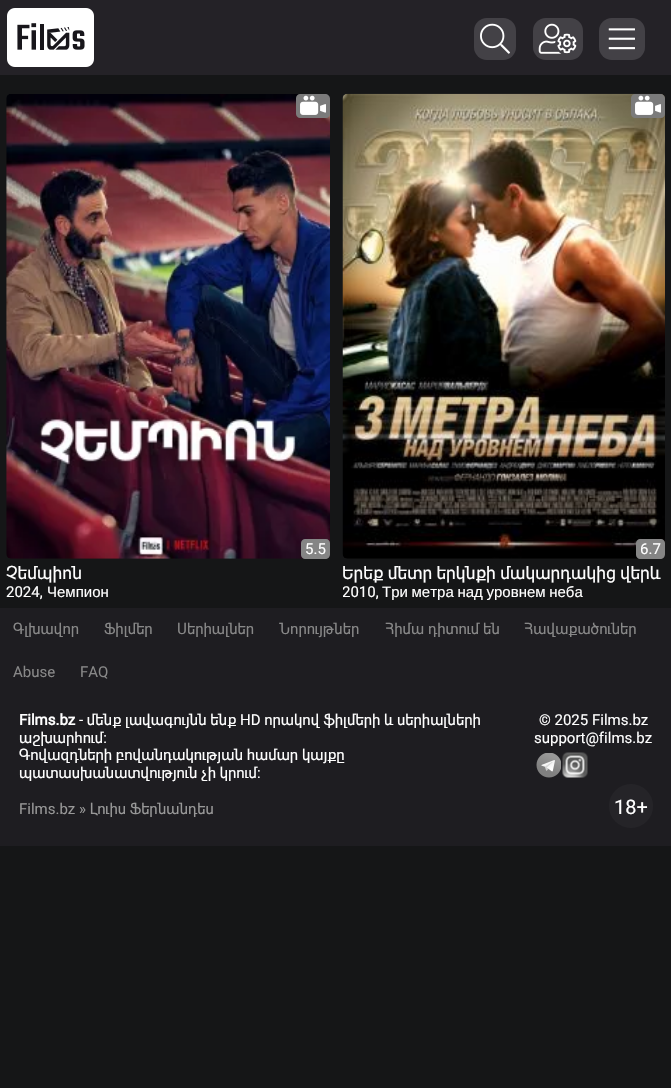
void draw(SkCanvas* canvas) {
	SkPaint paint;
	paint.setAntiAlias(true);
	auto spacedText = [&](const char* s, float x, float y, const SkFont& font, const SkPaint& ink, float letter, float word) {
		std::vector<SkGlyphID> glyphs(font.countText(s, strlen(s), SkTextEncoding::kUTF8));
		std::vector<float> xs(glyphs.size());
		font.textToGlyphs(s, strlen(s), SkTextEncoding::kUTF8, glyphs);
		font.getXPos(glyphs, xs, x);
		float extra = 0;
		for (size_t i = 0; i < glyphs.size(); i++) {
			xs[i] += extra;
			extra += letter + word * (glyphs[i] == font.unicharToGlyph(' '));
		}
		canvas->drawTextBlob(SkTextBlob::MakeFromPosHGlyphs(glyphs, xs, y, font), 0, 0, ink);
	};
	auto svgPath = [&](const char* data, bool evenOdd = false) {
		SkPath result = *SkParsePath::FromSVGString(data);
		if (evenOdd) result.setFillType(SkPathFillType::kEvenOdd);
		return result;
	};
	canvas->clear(0xff151617);
	paint.setColor(0xff242227);
	canvas->drawRect(SkRect::MakeXYWH(0, 0, 671, 75), paint);
	canvas->drawImageRect(SkImages::DeferredFromEncodedData(SkData::MakeFromFileName("img1.png")), SkRect::MakeXYWH(7, 8, 87, 59), SkSamplingOptions());
	paint.setColor(0xff434146);
	canvas->drawRoundRect(SkRect::MakeXYWH(474, 18, 42, 42), 13, 13, paint);
	canvas->drawImageRect(SkImages::DeferredFromEncodedData(SkData::MakeFromFileName("img2.png")), SkRect::MakeXYWH(480, 23, 30, 31), SkSamplingOptions());
	canvas->drawRoundRect(SkRect::MakeXYWH(533, 18, 50, 42), 13, 13, paint);
	canvas->drawImageRect(SkImages::DeferredFromEncodedData(SkData::MakeFromFileName("img3.png")), SkRect::MakeXYWH(538, 23, 39, 31), SkSamplingOptions());
	canvas->drawRoundRect(SkRect::MakeXYWH(599, 18, 46, 42), 13, 13, paint);
	canvas->drawImageRect(SkImages::DeferredFromEncodedData(SkData::MakeFromFileName("img4.png")), SkRect::MakeXYWH(608, 28, 27, 22), SkSamplingOptions());
	canvas->drawImageRect(SkImages::DeferredFromEncodedData(SkData::MakeFromFileName("img5.png")), SkRect::MakeXYWH(6, 94, 324, 465), SkSamplingOptions());
	paint.setColor(0xff7b7b7b);
	canvas->drawPath(svgPath("M300 94H325C328 94 330 96 330 99V114C330 116 328 118 326 118H300C298 118 296 116 296 114V98C296 96 298 94 300 94Z"), paint);
	canvas->drawImageRect(SkImages::DeferredFromEncodedData(SkData::MakeFromFileName("img6.png")), SkRect::MakeXYWH(300, 95, 26, 20), SkSamplingOptions());
	paint.setColor(0xff858585);
	canvas->drawPath(svgPath("M305 539H326C328 539 330 541 330 543V554C330 557 328 559 325 559H305C303 559 301 557 301 555V543C301 541 303 539 305 539Z"), paint);
	SkFont f1(fontMgr->matchFamilyStyle("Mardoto", SkFontStyle::Normal()), 15);
	f1.setSubpixel(true);
	paint.setColor(0xffffffff);
	canvas->drawString("5.5", 305, 554, f1, paint);
	SkFont f2(fontMgr->matchFamilyStyle("Mardoto", SkFontStyle::Normal()), 17.5);
	f2.setSubpixel(true);
	canvas->drawString("Չեմպիոն", 6, 579, f2, paint);
	canvas->drawString("2024,", 6, 597, f1, paint);
	SkFont f3(fontMgr->matchFamilyStyle("Liberation Sans", SkFontStyle::Normal()), 15);
	f3.setSubpixel(true);
	canvas->drawString("Чемпион", 47, 597, f3, paint);
	canvas->drawImageRect(SkImages::DeferredFromEncodedData(SkData::MakeFromFileName("img7.png")), SkRect::MakeXYWH(342, 93, 323, 466), SkSamplingOptions());
	paint.setColor(0xff7b7b7b);
	canvas->drawPath(svgPath("M635 94H660C663 94 665 96 665 99V114C665 116 663 118 661 118H635C633 118 631 116 631 114V98C631 96 633 94 635 94Z"), paint);
	canvas->drawImageRect(SkImages::DeferredFromEncodedData(SkData::MakeFromFileName("img6.png")), SkRect::MakeXYWH(635, 95, 26, 20), SkSamplingOptions());
	paint.setColor(0xff858585);
	canvas->drawPath(svgPath("M640 539H661C663 539 665 541 665 543V554C665 557 663 559 660 559H640C638 559 636 557 636 555V543C636 541 638 539 640 539Z"), paint);
	paint.setColor(0xffffffff);
	canvas->drawString("6.7", 640, 554, f1, paint);
	canvas->drawString("Երեք մետր երկնքի մակարդակից վերև", 342, 579, f2, paint);
	canvas->save();
	canvas->clipRect(SkRect::MakeXYWH(343, 583, 322, 17));
	canvas->drawString("2010,", 342, 597, f1, paint);
	spacedText("Три метра над уровнем неба", 382, 597, f3, paint, 0, -0.5);
	canvas->restore();
	paint.setColor(0xff1e1d21);
	canvas->drawRect(SkRect::MakeXYWH(0, 608, 671, 238), paint);
	paint.setColor(0xff888888);
	canvas->drawString("Գլխավոր", 13, 634, f1, paint);
	canvas->drawString("Ֆիլմեր", 104, 634, f1, paint);
	canvas->drawString("Սերիալներ", 177, 634, f1, paint);
	canvas->drawString("Նորույթներ", 279, 634, f1, paint);
	canvas->drawString("Հիմա դիտում են", 385, 634, f1, paint);
	canvas->drawString("Հավաքածուներ", 524, 634, f1, paint);
	canvas->drawString("Abuse", 13, 677, f1, paint);
	canvas->drawString("FAQ", 80, 677, f1, paint);
	SkFont f4(fontMgr->matchFamilyStyle("Mardoto", SkFontStyle::Bold()), 15);
	f4.setSubpixel(true);
	paint.setColor(0xffffffff);
	canvas->drawString("Films.bz", 19, 725, f4, paint);
	canvas->drawString("- մենք լավագույնն ենք HD որակով ֆիլմերի և սերիալների", 79, 725, f1, paint);
	canvas->drawString("աշխարհում:", 19, 743, f1, paint);
	canvas->drawString("Գովազդների բովանդակության համար կայքը", 19, 760, f1, paint);
	canvas->drawString("պատասխանատվություն չի կրում:", 19, 778, f1, paint);
	canvas->drawString("© 2025 Films.bz", 539, 725, f1, paint);
	canvas->drawString("support@films.bz", 534, 743, f1, paint);
	canvas->drawImageRect(SkImages::DeferredFromEncodedData(SkData::MakeFromFileName("img8.png")), SkRect::MakeXYWH(536, 753, 25, 25), SkSamplingOptions());
	canvas->drawImageRect(SkImages::DeferredFromEncodedData(SkData::MakeFromFileName("img9.png")), SkRect::MakeXYWH(562, 752, 26, 26), SkSamplingOptions());
	paint.setColor(0xff252428);
	canvas->drawCircle(631, 806, 22, paint);
	SkFont f5(fontMgr->matchFamilyStyle("Roboto", SkFontStyle::Normal()), 20);
	f5.setSubpixel(true);
	paint.setColor(0xffffffff);
	canvas->drawString("18+", 614, 814, f5, paint);
	paint.setColor(0xff989898);
	canvas->drawString("Films.bz » Լուիս Ֆերնանդես", 19, 814, f1, paint);
}
